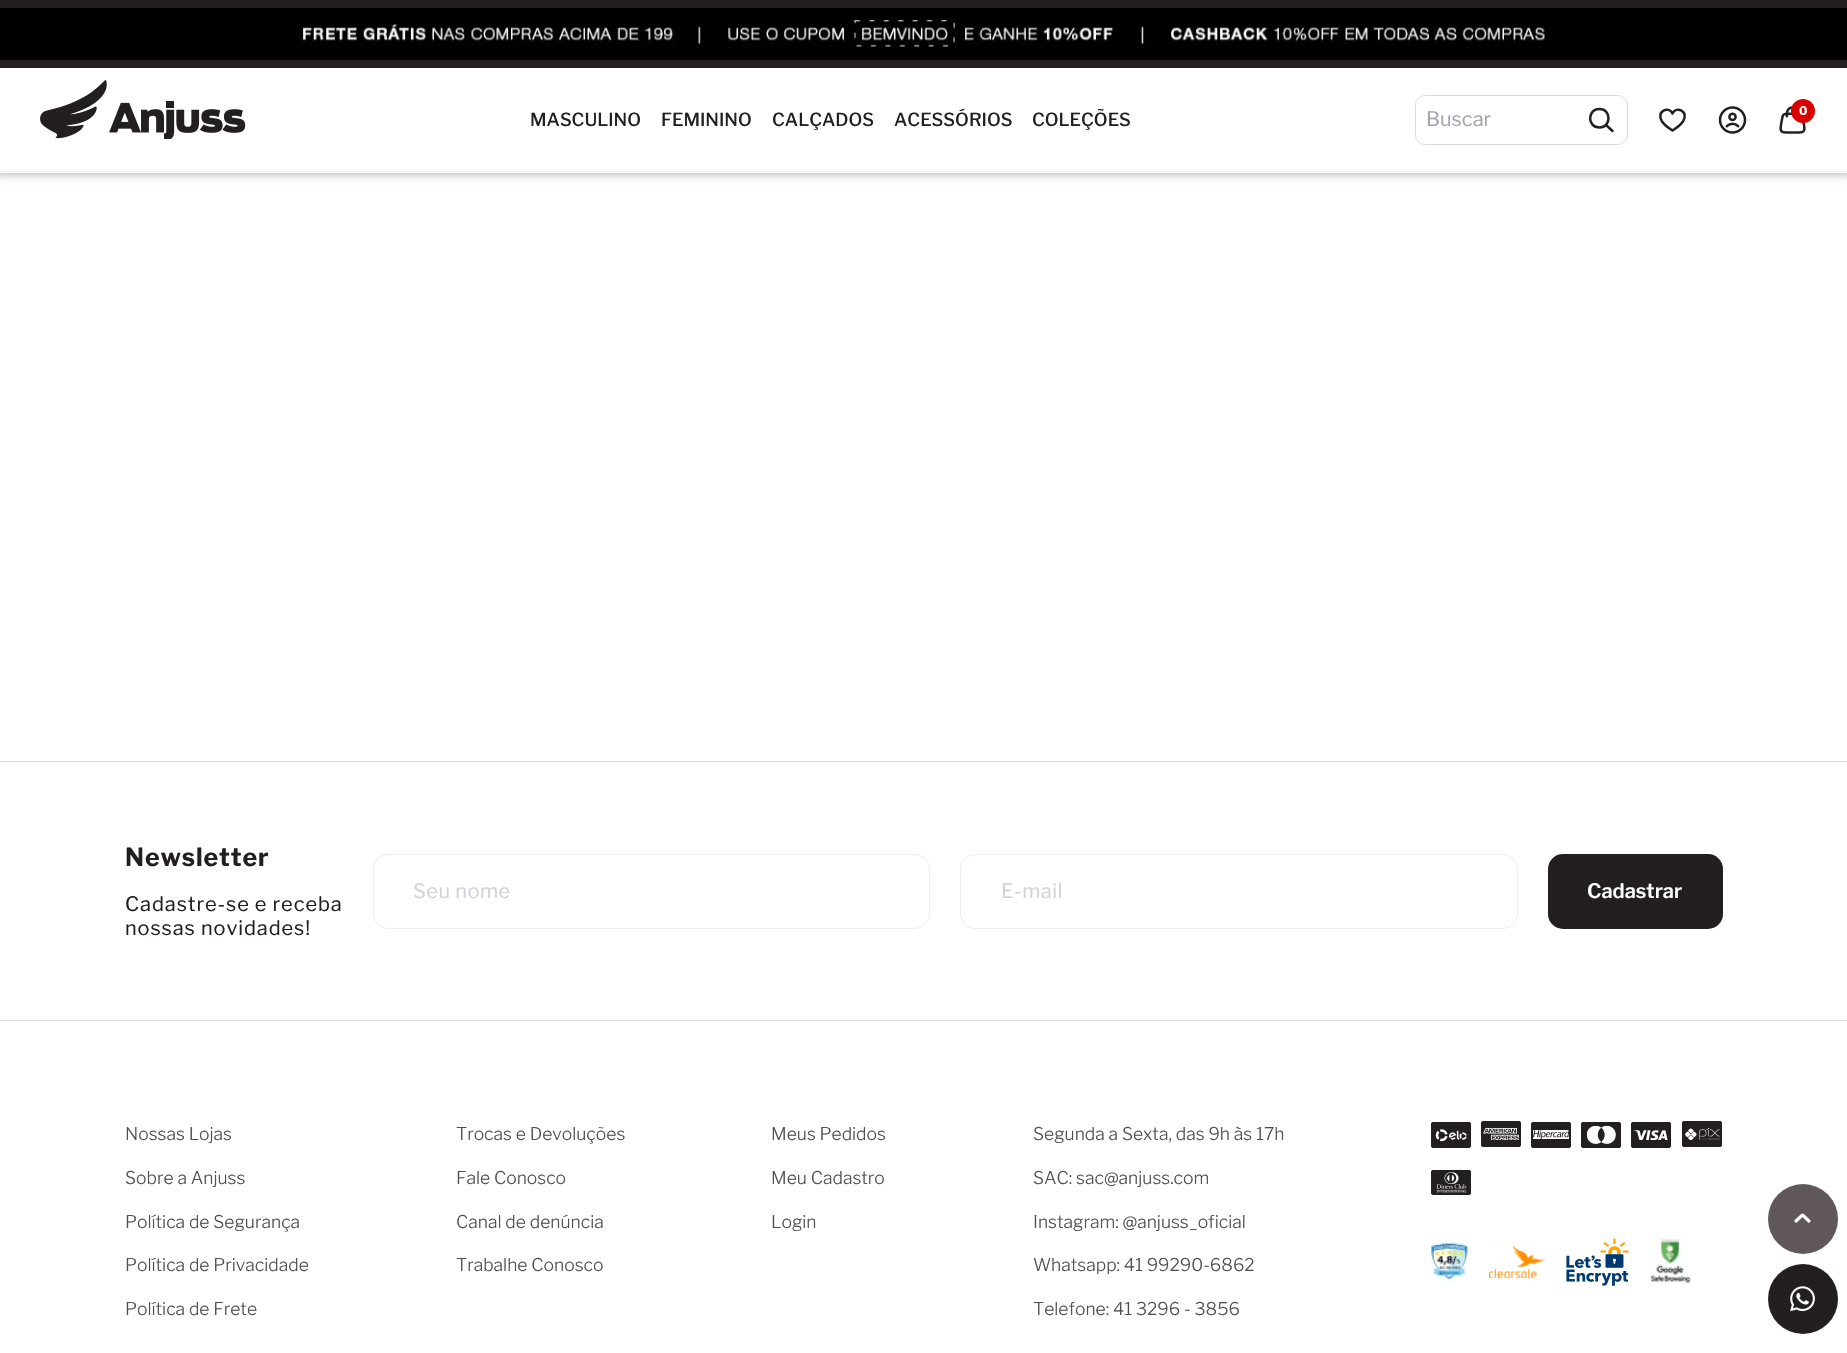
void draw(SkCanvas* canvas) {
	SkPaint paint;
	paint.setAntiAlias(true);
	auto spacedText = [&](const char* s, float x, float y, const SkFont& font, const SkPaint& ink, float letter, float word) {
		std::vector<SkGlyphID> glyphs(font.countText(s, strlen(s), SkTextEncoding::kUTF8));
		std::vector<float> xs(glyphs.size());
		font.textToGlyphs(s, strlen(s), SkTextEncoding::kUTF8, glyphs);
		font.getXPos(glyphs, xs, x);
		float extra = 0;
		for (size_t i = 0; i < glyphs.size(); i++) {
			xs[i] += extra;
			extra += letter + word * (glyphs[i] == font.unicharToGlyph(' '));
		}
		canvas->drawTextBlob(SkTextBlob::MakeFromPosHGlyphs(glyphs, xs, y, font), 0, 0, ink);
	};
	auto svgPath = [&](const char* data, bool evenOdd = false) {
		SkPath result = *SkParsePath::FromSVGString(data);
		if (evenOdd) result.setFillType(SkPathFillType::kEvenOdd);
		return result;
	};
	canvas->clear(0xffffffff);
	paint.setColor(0x80000000);
	paint.setMaskFilter(SkMaskFilter::MakeBlur(kNormal_SkBlurStyle, 6));
	canvas->drawRect(SkRect::MakeXYWH(-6, -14, 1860, 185), paint);
	paint.setMaskFilter(nullptr);
	paint.setColor(0xffffffff);
	canvas->drawRect(SkRect::MakeXYWH(0, 68, 1847, 105), paint);
	paint.setColor(0xff231f20);
	canvas->drawRect(SkRect::MakeXYWH(0, 0, 1847, 68), paint);
	canvas->drawImageRect(SkImages::DeferredFromEncodedData(SkData::MakeFromFileName("img1.png")), SkRect::MakeXYWH(0, 8, 1847, 52), SkSamplingOptions());
	paint.setColor(0xffededed);
	canvas->drawRect(SkRect::MakeXYWH(0, 171, 1847, 1), paint);
	canvas->drawImageRect(SkImages::DeferredFromEncodedData(SkData::MakeFromFileName("img2.png")), SkRect::MakeXYWH(40, 80, 206, 59), SkSamplingOptions());
	SkFont f1(fontMgr->matchFamilyStyle("Libre Franklin", SkFontStyle(500, SkFontStyle::kNormal_Width, SkFontStyle::kUpright_Slant)), 18);
	f1.setSubpixel(true);
	paint.setColor(0xff231f20);
	canvas->drawString("MASCULINO", 530, 126, f1, paint);
	canvas->drawString("FEMININO", 661, 126, f1, paint);
	canvas->drawString("CALÇADOS", 772, 126, f1, paint);
	canvas->drawString("ACESSÓRIOS", 894, 126, f1, paint);
	canvas->drawString("COLEÇÕES", 1032, 126, f1, paint);
	paint.setStroke(true);
	paint.setStrokeWidth(1);
	paint.setColor(0xffdcdbdb);
	canvas->drawRoundRect(SkRect::MakeXYWH(1415.5, 95.5, 212, 49), 9.5, 9.5, paint);
	SkFont f2(fontMgr->matchFamilyStyle("Libre Franklin", SkFontStyle::Normal()), 20);
	f2.setSubpixel(true);
	paint.setStroke(false);
	paint.setColor(0xffa0a5ae);
	canvas->drawString("Buscar", 1426, 126, f2, paint);
	paint.setStroke(true);
	paint.setStrokeWidth(2.5);
	paint.setStrokeCap(SkPaint::kRound_Cap);
	paint.setStrokeJoin(SkPaint::kRound_Join);
	paint.setColor(0xff231f20);
	canvas->drawPath(svgPath("M1599.5 127.5C1611.5 127.5 1611.5 109 1599.5 109C1587 109 1587 127.5 1599.5 127.5ZM1606 125L1612.5 131"), paint);
	canvas->drawPath(svgPath("M1672.5 130.5C1668.5 128 1664.5 125 1662 121.5C1655.5 111 1669 105.5 1672.5 113.5C1676 105.5 1689.5 111 1683 121.5C1680.5 125 1676.5 128 1672.5 130.5Z"), paint);
	canvas->drawImageRect(SkImages::DeferredFromEncodedData(SkData::MakeFromFileName("img3.png")), SkRect::MakeXYWH(1718, 106, 29, 28), SkSamplingOptions());
	canvas->drawImageRect(SkImages::DeferredFromEncodedData(SkData::MakeFromFileName("img4.png")), SkRect::MakeXYWH(1779, 106, 27, 28), SkSamplingOptions());
	paint.setStroke(false);
	paint.setColor(0xffd90000);
	canvas->drawCircle(1803, 111, 12, paint);
	SkFont f3(fontMgr->matchFamilyStyle("Libre Franklin", SkFontStyle::Bold()), 12);
	f3.setSubpixel(true);
	paint.setColor(0xffffffff);
	canvas->drawString("0", 1799, 115, f3, paint);
	paint.setColor(0xffdcdbdb);
	canvas->drawRect(SkRect::MakeXYWH(0, 761, 1847, 1), paint);
	canvas->drawRect(SkRect::MakeXYWH(0, 1020, 1847, 1), paint);
	SkFont f4(fontMgr->matchFamilyStyle("Libre Franklin", SkFontStyle::Bold()), 25);
	f4.setSubpixel(true);
	paint.setColor(0xff231f20);
	spacedText("Newsletter", 125, 866, f4, paint, 0.9, 0);
	spacedText("Cadastre-se e receba", 125, 911, f2, paint, 0.9, 0);
	spacedText("nossas novidades!", 125, 935, f2, paint, 0.9, 0);
	paint.setStroke(true);
	paint.setStrokeWidth(1);
	paint.setStrokeCap(SkPaint::kButt_Cap);
	paint.setStrokeJoin(SkPaint::kMiter_Join);
	paint.setColor(0xffededed);
	canvas->drawRoundRect(SkRect::MakeXYWH(373.5, 854.5, 556, 74), 14.5, 14.5, paint);
	paint.setStroke(false);
	paint.setColor(0xffd0d2d6);
	spacedText("Seu nome", 413, 898, f2, paint, 0.5, 0);
	paint.setStroke(true);
	paint.setColor(0xffededed);
	canvas->drawRoundRect(SkRect::MakeXYWH(960.5, 854.5, 557, 74), 14.5, 14.5, paint);
	paint.setStroke(false);
	paint.setColor(0xffd0d2d6);
	spacedText("E-mail", 1001, 898, f2, paint, 0.5, 0);
	paint.setColor(0xff231f20);
	canvas->drawRoundRect(SkRect::MakeXYWH(1548, 854, 175, 75), 15, 15, paint);
	SkFont f5(fontMgr->matchFamilyStyle("Libre Franklin", SkFontStyle(600, SkFontStyle::kNormal_Width, SkFontStyle::kUpright_Slant)), 20);
	f5.setSubpixel(true);
	paint.setColor(0xffffffff);
	canvas->drawString("Cadastrar", 1587, 898, f5, paint);
	SkFont f6(fontMgr->matchFamilyStyle("Libre Franklin", SkFontStyle(300, SkFontStyle::kNormal_Width, SkFontStyle::kUpright_Slant)), 17.5);
	f6.setSubpixel(true);
	paint.setColor(0xff4f4f4f);
	canvas->drawString("Nossas Lojas", 125, 1140, f6, paint);
	canvas->drawString("Sobre a Anjuss", 125, 1184, f6, paint);
	canvas->drawString("Política de Segurança", 125, 1228, f6, paint);
	canvas->drawString("Política de Privacidade", 125, 1271, f6, paint);
	canvas->drawString("Política de Frete", 125, 1315, f6, paint);
	canvas->drawString("Trocas e Devoluções", 456, 1140, f6, paint);
	canvas->drawString("Fale Conosco", 456, 1184, f6, paint);
	canvas->drawString("Canal de denúncia", 456, 1228, f6, paint);
	canvas->drawString("Trabalhe Conosco", 456, 1271, f6, paint);
	canvas->drawString("Meus Pedidos", 771, 1140, f6, paint);
	canvas->drawString("Meu Cadastro", 771, 1184, f6, paint);
	canvas->drawString("Login", 771, 1228, f6, paint);
	canvas->drawString("Segunda a Sexta, das 9h às 17h", 1033, 1140, f6, paint);
	canvas->drawString("SAC: sac@anjuss.com", 1033, 1184, f6, paint);
	canvas->drawString("Instagram: @anjuss_oficial", 1033, 1228, f6, paint);
	canvas->drawString("Whatsapp: 41 99290-6862", 1033, 1271, f6, paint);
	canvas->drawString("Telefone: 41 3296 - 3856", 1033, 1315, f6, paint);
	canvas->drawImageRect(SkImages::DeferredFromEncodedData(SkData::MakeFromFileName("img5.png")), SkRect::MakeXYWH(1431, 1122, 40, 26), SkSamplingOptions());
	canvas->drawImageRect(SkImages::DeferredFromEncodedData(SkData::MakeFromFileName("img6.png")), SkRect::MakeXYWH(1481, 1121, 40, 26), SkSamplingOptions());
	canvas->drawImageRect(SkImages::DeferredFromEncodedData(SkData::MakeFromFileName("img7.png")), SkRect::MakeXYWH(1531, 1122, 40, 26), SkSamplingOptions());
	canvas->drawImageRect(SkImages::DeferredFromEncodedData(SkData::MakeFromFileName("img8.png")), SkRect::MakeXYWH(1581, 1122, 40, 26), SkSamplingOptions());
	canvas->drawImageRect(SkImages::DeferredFromEncodedData(SkData::MakeFromFileName("img9.png")), SkRect::MakeXYWH(1631, 1122, 40, 26), SkSamplingOptions());
	canvas->drawImageRect(SkImages::DeferredFromEncodedData(SkData::MakeFromFileName("img10.png")), SkRect::MakeXYWH(1682, 1121, 40, 26), SkSamplingOptions());
	canvas->drawImageRect(SkImages::DeferredFromEncodedData(SkData::MakeFromFileName("img11.png")), SkRect::MakeXYWH(1431, 1170, 40, 25), SkSamplingOptions());
	canvas->drawImageRect(SkImages::DeferredFromEncodedData(SkData::MakeFromFileName("img12.png")), SkRect::MakeXYWH(1431, 1242, 37, 40), SkSamplingOptions());
	canvas->drawImageRect(SkImages::DeferredFromEncodedData(SkData::MakeFromFileName("img13.png")), SkRect::MakeXYWH(1489, 1245, 56, 34), SkSamplingOptions());
	canvas->drawImageRect(SkImages::DeferredFromEncodedData(SkData::MakeFromFileName("img14.png")), SkRect::MakeXYWH(1566, 1238, 63, 48), SkSamplingOptions());
	canvas->drawImageRect(SkImages::DeferredFromEncodedData(SkData::MakeFromFileName("img15.png")), SkRect::MakeXYWH(1649, 1238, 42, 46), SkSamplingOptions());
	paint.setColor(0xff5f5759);
	canvas->drawCircle(1803, 1219, 35, paint);
	paint.setStroke(true);
	paint.setStrokeWidth(3.1);
	paint.setStrokeCap(SkPaint::kRound_Cap);
	paint.setStrokeJoin(SkPaint::kRound_Join);
	paint.setColor(0xffffffff);
	canvas->drawPath(svgPath("M1796 1221L1802.5 1215L1809 1221"), paint);
	paint.setStroke(false);
	paint.setColor(0xff231f20);
	canvas->drawCircle(1803, 1299, 35, paint);
	canvas->drawImageRect(SkImages::DeferredFromEncodedData(SkData::MakeFromFileName("img16.png")), SkRect::MakeXYWH(1790, 1286, 25, 26), SkSamplingOptions());
}
